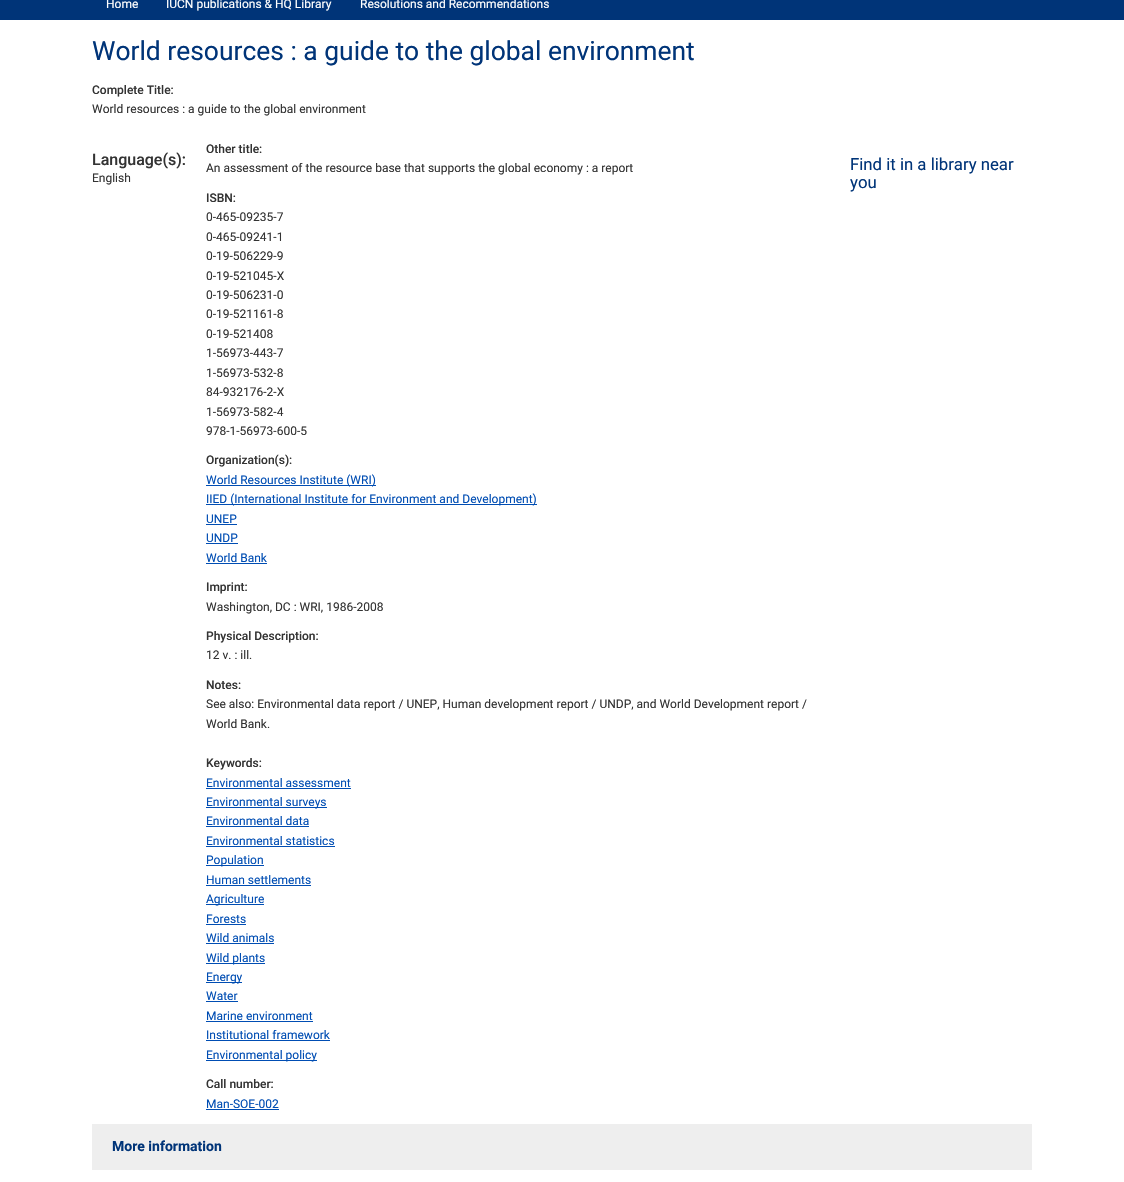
void draw(SkCanvas* canvas) {
	SkPaint paint;
	paint.setAntiAlias(true);
	canvas->clear(0xffffffff);
	paint.setColor(0xff003478);
	canvas->drawRect(SkRect::MakeXYWH(0, 0, 1124, 20), paint);
	SkFont f1(fontMgr->matchFamilyStyle("Roboto", SkFontStyle::Normal()), 12);
	f1.setSubpixel(true);
	paint.setColor(0xffffffff);
	canvas->drawString("Home", 106, 8, f1, paint);
	canvas->drawString("IUCN publications & HQ Library", 166, 8, f1, paint);
	canvas->drawString("Resolutions and Recommendations", 360, 8, f1, paint);
	SkFont f2(fontMgr->matchFamilyStyle("Roboto", SkFontStyle::Normal()), 26.4);
	f2.setSubpixel(true);
	paint.setColor(0xff003478);
	canvas->drawString("World resources : a guide to the global environment", 92, 60, f2, paint);
	SkFont f3(fontMgr->matchFamilyStyle("Roboto", SkFontStyle(500, SkFontStyle::kNormal_Width, SkFontStyle::kUpright_Slant)), 12);
	f3.setSubpixel(true);
	paint.setColor(0xff333333);
	canvas->drawString("Complete Title:", 92, 94, f3, paint);
	canvas->drawString("World resources : a guide to the global environment", 92, 113, f1, paint);
	SkFont f4(fontMgr->matchFamilyStyle("Roboto", SkFontStyle(500, SkFontStyle::kNormal_Width, SkFontStyle::kUpright_Slant)), 16);
	f4.setSubpixel(true);
	canvas->drawString("Language(s):", 92, 165, f4, paint);
	canvas->drawString("English", 92, 182, f1, paint);
	canvas->drawString("Other title:", 206, 153, f3, paint);
	canvas->drawString("An assessment of the resource base that supports the global economy : a report", 206, 172, f1, paint);
	canvas->drawString("ISBN:", 206, 202, f3, paint);
	canvas->drawString("0-465-09235-7", 206, 221, f1, paint);
	canvas->drawString("0-465-09241-1", 206, 241, f1, paint);
	canvas->drawString("0-19-506229-9", 206, 260, f1, paint);
	canvas->drawString("0-19-521045-X", 206, 280, f1, paint);
	canvas->drawString("0-19-506231-0", 206, 299, f1, paint);
	canvas->drawString("0-19-521161-8", 206, 318, f1, paint);
	canvas->drawString("0-19-521408", 206, 338, f1, paint);
	canvas->drawString("1-56973-443-7", 206, 357, f1, paint);
	canvas->drawString("1-56973-532-8", 206, 377, f1, paint);
	canvas->drawString("84-932176-2-X", 206, 396, f1, paint);
	canvas->drawString("1-56973-582-4", 206, 416, f1, paint);
	canvas->drawString("978-1-56973-600-5", 206, 435, f1, paint);
	canvas->drawString("Organization(s):", 206, 464, f3, paint);
	paint.setColor(0xff004db3);
	canvas->drawRect(SkRect::MakeXYWH(206, 485, 170, 1), paint);
	canvas->drawString("World Resources Institute (WRI)", 206, 484, f1, paint);
	canvas->drawRect(SkRect::MakeXYWH(206, 504, 331, 1), paint);
	canvas->drawString("IIED (International Institute for Environment and Development)", 206, 503, f1, paint);
	canvas->drawString("UNEP", 206, 523, f1, paint);
	canvas->drawRect(SkRect::MakeXYWH(206, 524, 31, 1), paint);
	canvas->drawString("UNDP", 206, 542, f1, paint);
	canvas->drawRect(SkRect::MakeXYWH(206, 543, 32, 1), paint);
	canvas->drawString("World Bank", 206, 562, f1, paint);
	canvas->drawRect(SkRect::MakeXYWH(206, 563, 61, 1), paint);
	paint.setColor(0xff333333);
	canvas->drawString("Imprint:", 206, 591, f3, paint);
	canvas->drawString("Washington, DC : WRI, 1986-2008", 206, 611, f1, paint);
	canvas->drawString("Physical Description:", 206, 640, f3, paint);
	canvas->drawString("12 v. : ill.", 206, 659, f1, paint);
	canvas->drawString("Notes:", 206, 689, f3, paint);
	canvas->drawString("See also: Environmental data report / UNEP, Human development report / UNDP, and World Development report /", 206, 708, f1, paint);
	canvas->drawString("World Bank.", 206, 728, f1, paint);
	canvas->drawString("Keywords:", 206, 767, f3, paint);
	paint.setColor(0xff004db3);
	canvas->drawString("Environmental assessment", 206, 787, f1, paint);
	canvas->drawRect(SkRect::MakeXYWH(206, 788, 145, 1), paint);
	canvas->drawRect(SkRect::MakeXYWH(206, 807, 121, 1), paint);
	canvas->drawString("Environmental surveys", 206, 806, f1, paint);
	canvas->drawString("Environmental data", 206, 825, f1, paint);
	canvas->drawRect(SkRect::MakeXYWH(206, 826, 103, 1), paint);
	canvas->drawString("Environmental statistics", 206, 845, f1, paint);
	canvas->drawRect(SkRect::MakeXYWH(206, 846, 129, 1), paint);
	canvas->drawRect(SkRect::MakeXYWH(206, 865, 58, 1), paint);
	canvas->drawString("Population", 206, 864, f1, paint);
	canvas->drawString("Human settlements", 206, 884, f1, paint);
	canvas->drawRect(SkRect::MakeXYWH(206, 885, 105, 1), paint);
	canvas->drawRect(SkRect::MakeXYWH(206, 904, 58, 1), paint);
	canvas->drawString("Agriculture", 206, 903, f1, paint);
	canvas->drawString("Forests", 206, 923, f1, paint);
	canvas->drawRect(SkRect::MakeXYWH(206, 924, 40, 1), paint);
	canvas->drawString("Wild animals", 206, 942, f1, paint);
	canvas->drawRect(SkRect::MakeXYWH(206, 943, 68, 1), paint);
	canvas->drawRect(SkRect::MakeXYWH(206, 963, 59, 1), paint);
	canvas->drawString("Wild plants", 206, 962, f1, paint);
	canvas->drawRect(SkRect::MakeXYWH(206, 982, 36, 1), paint);
	canvas->drawString("Energy", 206, 981, f1, paint);
	canvas->drawString("Water", 206, 1000, f1, paint);
	canvas->drawRect(SkRect::MakeXYWH(206, 1001, 32, 1), paint);
	canvas->drawString("Marine environment", 206, 1020, f1, paint);
	canvas->drawRect(SkRect::MakeXYWH(206, 1021, 107, 1), paint);
	canvas->drawString("Institutional framework", 206, 1039, f1, paint);
	canvas->drawRect(SkRect::MakeXYWH(206, 1040, 124, 1), paint);
	canvas->drawRect(SkRect::MakeXYWH(206, 1060, 111, 1), paint);
	canvas->drawString("Environmental policy", 206, 1059, f1, paint);
	paint.setColor(0xff333333);
	canvas->drawString("Call number:", 206, 1088, f3, paint);
	paint.setColor(0xff004db3);
	canvas->drawString("Man-SOE-002", 206, 1108, f1, paint);
	canvas->drawRect(SkRect::MakeXYWH(206, 1109, 73, 1), paint);
	SkFont f5(fontMgr->matchFamilyStyle("Roboto", SkFontStyle::Normal()), 16.75);
	f5.setSubpixel(true);
	paint.setColor(0xff003478);
	canvas->drawString("Find it in a library near", 850, 170, f5, paint);
	canvas->drawString("you", 850, 188, f5, paint);
	paint.setColor(0xffeeeeee);
	canvas->drawRect(SkRect::MakeXYWH(92, 1124, 940, 46), paint);
	SkFont f6(fontMgr->matchFamilyStyle("Roboto", SkFontStyle::Bold()), 14);
	f6.setSubpixel(true);
	paint.setColor(0xff003478);
	canvas->drawString("More information", 112, 1151, f6, paint);
}
